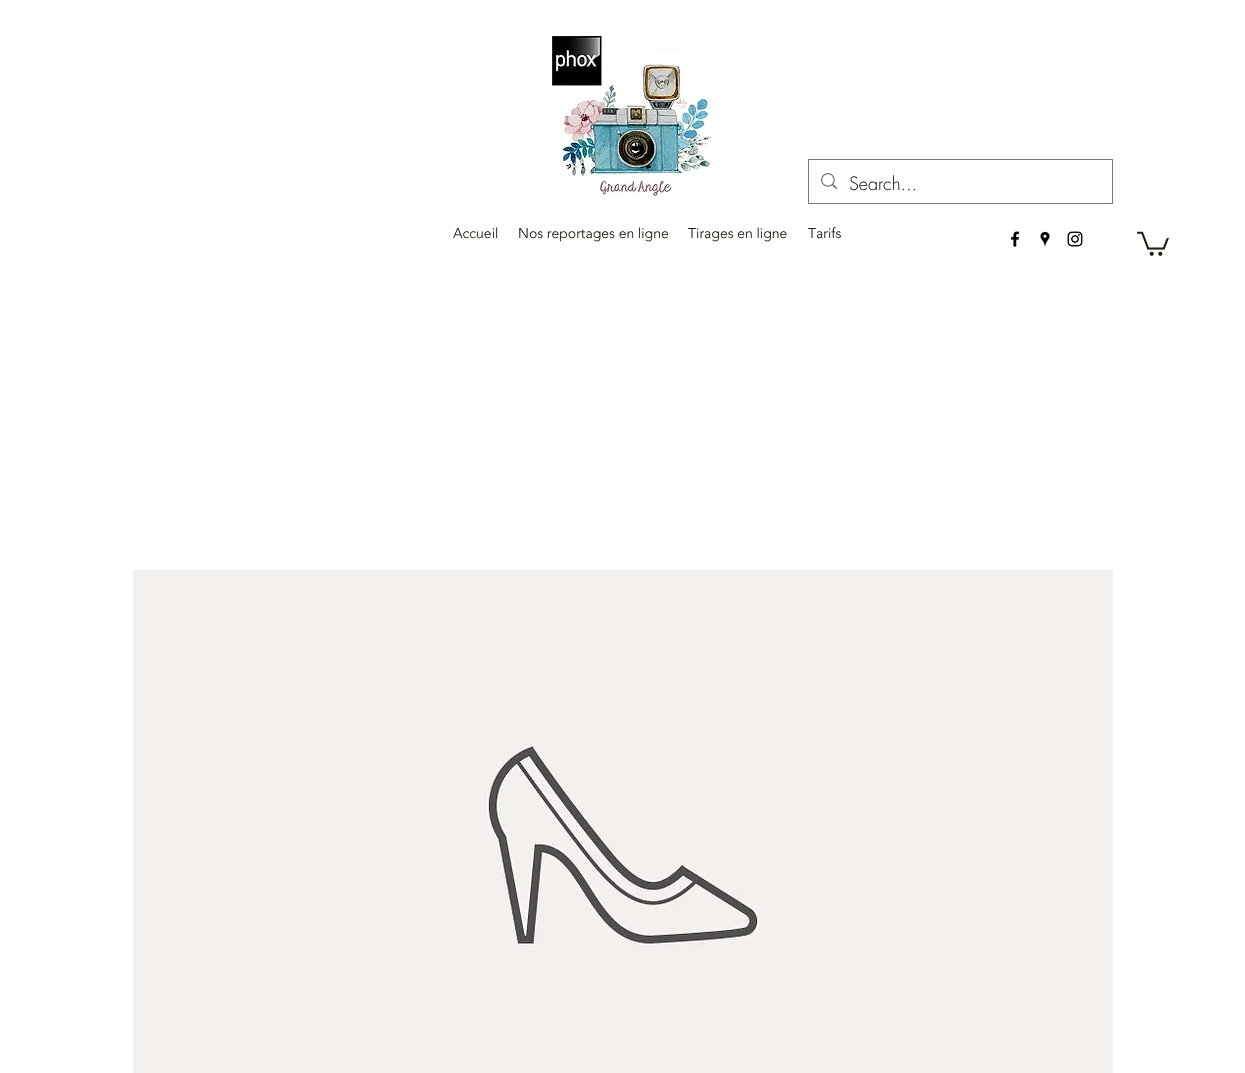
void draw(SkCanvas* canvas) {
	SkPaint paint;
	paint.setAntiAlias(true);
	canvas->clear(0xffffffff);
	canvas->drawImageRect(SkImages::DeferredFromEncodedData(SkData::MakeFromFileName("img1.png")), SkRect::MakeXYWH(550, 34, 164, 164), SkSamplingOptions());
	paint.setStroke(true);
	paint.setStrokeWidth(1);
	paint.setColor(0xff7c7871);
	canvas->drawRect(SkRect::MakeXYWH(808.5, 159.5, 304, 44), paint);
	canvas->drawImageRect(SkImages::DeferredFromEncodedData(SkData::MakeFromFileName("img2.png")), SkRect::MakeXYWH(821, 173, 16, 17), SkSamplingOptions());
	SkFont f1(fontMgr->matchFamilyStyle("futura", SkFontStyle(300, SkFontStyle::kNormal_Width, SkFontStyle::kUpright_Slant)), 18);
	f1.setSubpixel(true);
	paint.setStroke(false);
	paint.setColor(0xff251e13);
	canvas->drawString("Search...", 849, 190, f1, paint);
	SkFont f2(fontMgr->matchFamilyStyle("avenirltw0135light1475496", SkFontStyle(300, SkFontStyle::kNormal_Width, SkFontStyle::kUpright_Slant)), 14);
	f2.setSubpixel(true);
	canvas->drawString("Accueil", 453, 238, f2, paint);
	canvas->drawString("Nos reportages en ligne", 518, 238, f2, paint);
	canvas->drawString("Tirages en ligne", 688, 238, f2, paint);
	canvas->drawString("Tarifs", 808, 238, f2, paint);
	canvas->drawImageRect(SkImages::DeferredFromEncodedData(SkData::MakeFromFileName("img3.png")), SkRect::MakeXYWH(1011, 231, 9, 16), SkSamplingOptions());
	canvas->drawImageRect(SkImages::DeferredFromEncodedData(SkData::MakeFromFileName("img4.png")), SkRect::MakeXYWH(1040, 231, 10, 15), SkSamplingOptions());
	canvas->drawImageRect(SkImages::DeferredFromEncodedData(SkData::MakeFromFileName("img5.png")), SkRect::MakeXYWH(1067, 231, 16, 16), SkSamplingOptions());
	canvas->drawImageRect(SkImages::DeferredFromEncodedData(SkData::MakeFromFileName("img6.png")), SkRect::MakeXYWH(1137, 231, 32, 25), SkSamplingOptions());
	canvas->drawImageRect(SkImages::DeferredFromEncodedData(SkData::MakeFromFileName("img7.png")), SkRect::MakeXYWH(133, 570, 980, 503), SkSamplingOptions());
}
